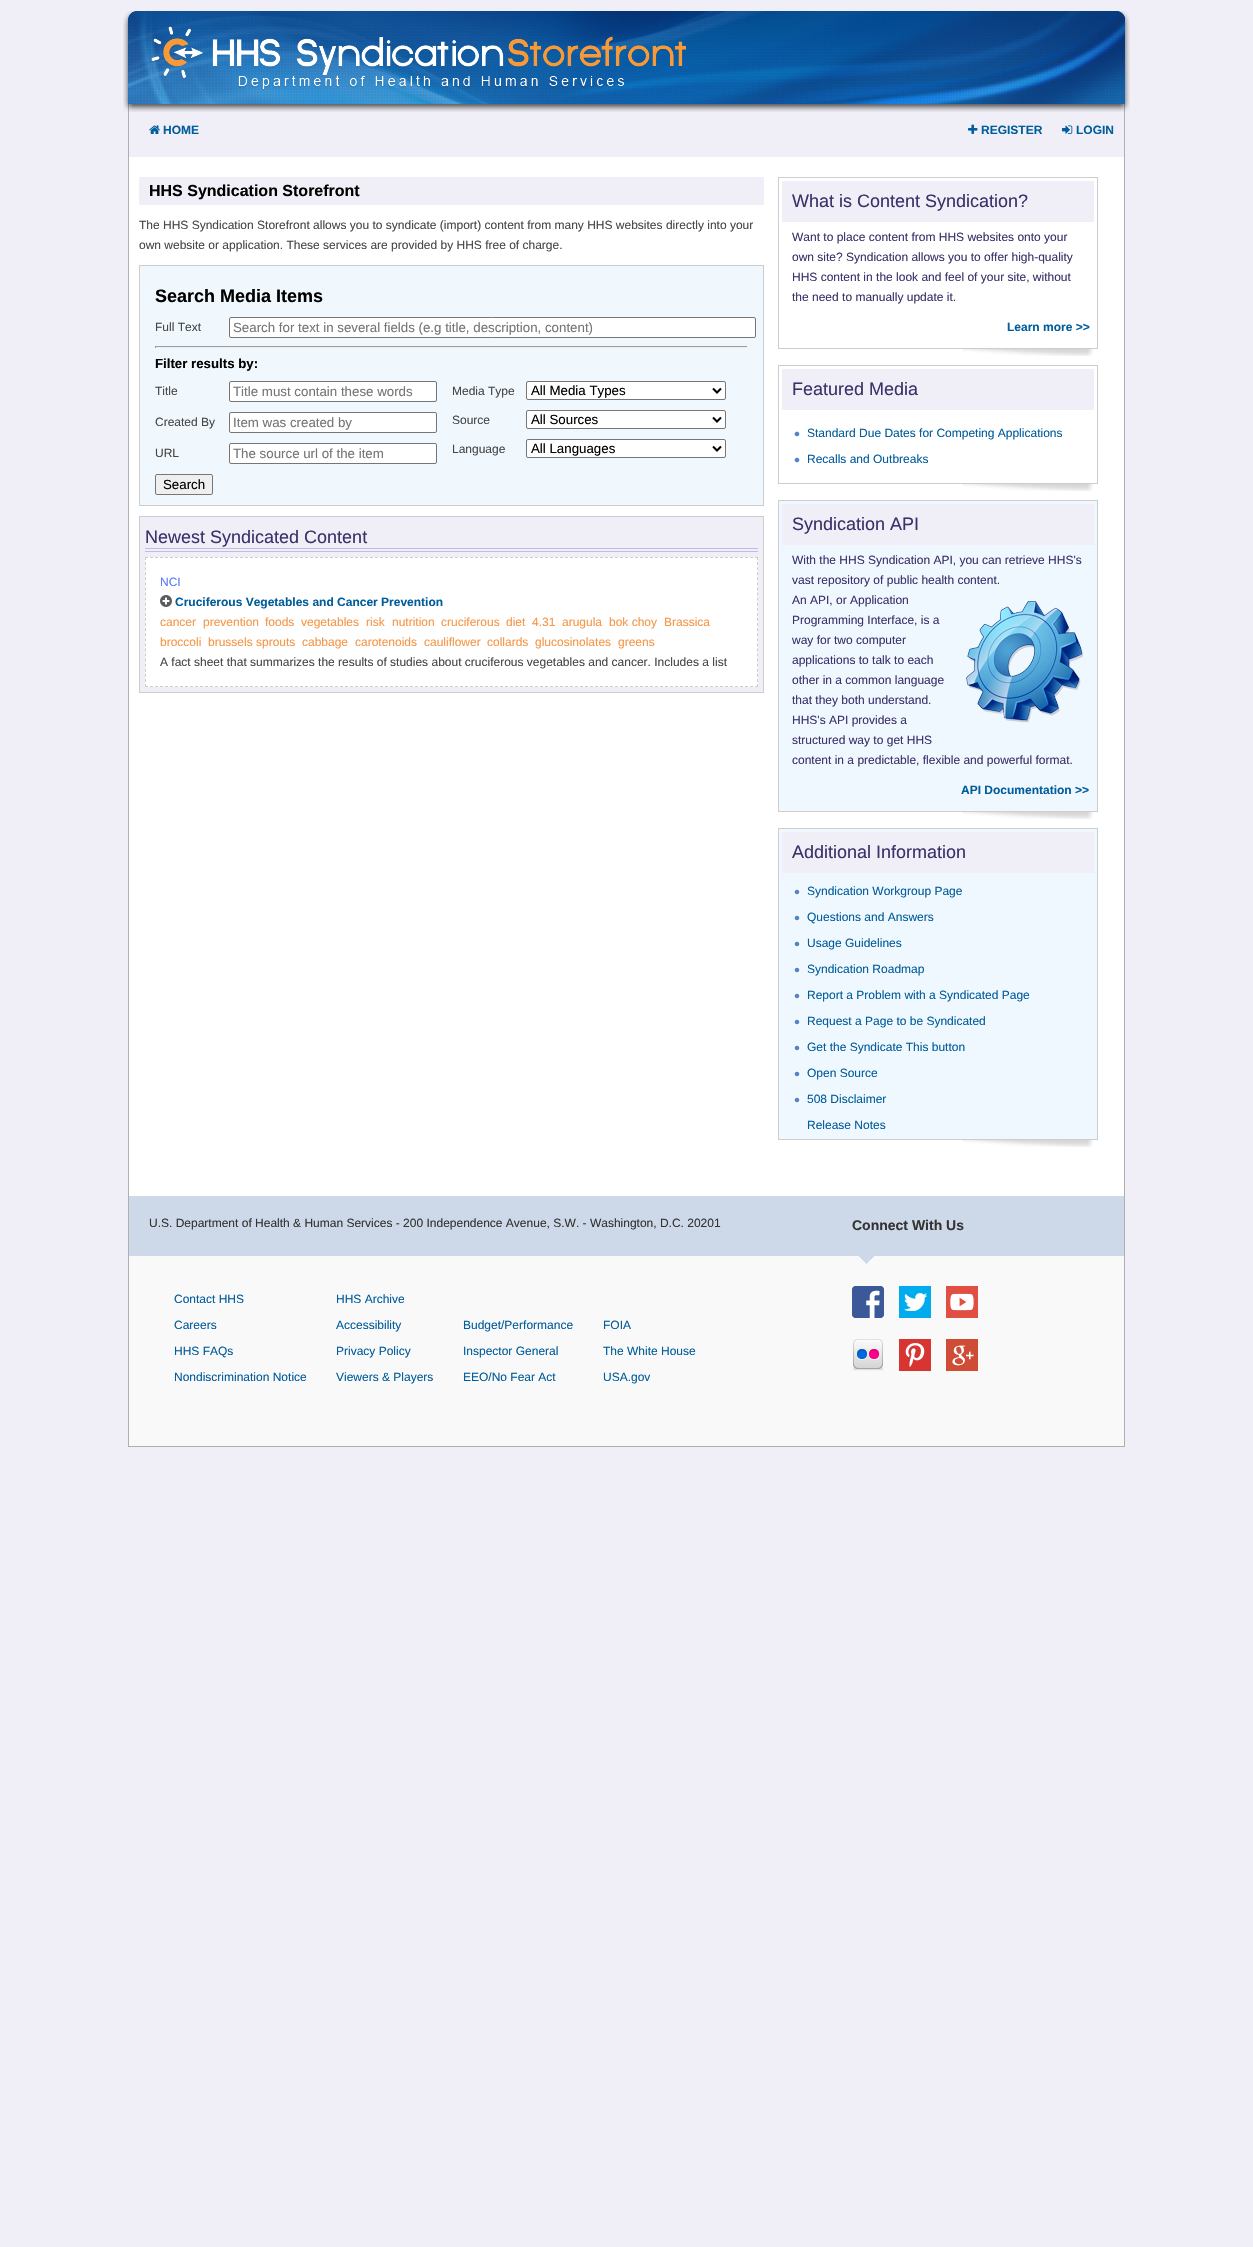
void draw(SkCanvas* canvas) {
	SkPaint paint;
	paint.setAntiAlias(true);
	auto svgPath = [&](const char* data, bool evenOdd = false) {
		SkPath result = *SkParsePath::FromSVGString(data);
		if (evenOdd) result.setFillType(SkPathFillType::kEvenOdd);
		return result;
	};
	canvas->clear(0xfff0eff7);
	paint.setColor(0xffafaeb1);
	canvas->drawRect(SkRect::MakeXYWH(1124, 110, 1, 1337), paint);
	canvas->drawRect(SkRect::MakeXYWH(128, 110, 1, 1146), paint);
	canvas->drawImageRect(SkImages::DeferredFromEncodedData(SkData::MakeFromFileName("img1.png")), SkRect::MakeXYWH(123, 11, 1007, 101), SkSamplingOptions());
	paint.setColor(0xffffffff);
	canvas->drawRect(SkRect::MakeXYWH(129, 157, 995, 1039), paint);
	canvas->drawImageRect(SkImages::DeferredFromEncodedData(SkData::MakeFromFileName("img2.png")), SkRect::MakeXYWH(149, 125, 11, 9), SkSamplingOptions());
	SkFont f1(fontMgr->matchFamilyStyle("Liberation Sans", SkFontStyle::Bold()), 12);
	f1.setSubpixel(true);
	paint.setColor(0xff025d9c);
	canvas->drawString("HOME", 163, 134, f1, paint);
	canvas->drawImageRect(SkImages::DeferredFromEncodedData(SkData::MakeFromFileName("img3.png")), SkRect::MakeXYWH(968, 124, 10, 10), SkSamplingOptions());
	canvas->drawString("REGISTER", 981, 134, f1, paint);
	canvas->drawImageRect(SkImages::DeferredFromEncodedData(SkData::MakeFromFileName("img4.png")), SkRect::MakeXYWH(1062, 125, 11, 9), SkSamplingOptions());
	canvas->drawString("LOGIN", 1076, 134, f1, paint);
	paint.setColor(0xfff0eff7);
	canvas->drawRect(SkRect::MakeXYWH(139, 177, 625, 28), paint);
	SkFont f2(fontMgr->matchFamilyStyle("Liberation Sans", SkFontStyle::Bold()), 16);
	f2.setSubpixel(true);
	paint.setColor(0xff000000);
	canvas->drawString("HHS Syndication Storefront", 149, 196, f2, paint);
	SkFont f3(fontMgr->matchFamilyStyle("Liberation Sans", SkFontStyle::Normal()), 12);
	f3.setSubpixel(true);
	paint.setColor(0xff464646);
	canvas->drawString("The HHS Syndication Storefront allows you to syndicate (import) content from many HHS websites directly into your", 139, 229, f3, paint);
	canvas->drawString("own website or application. These services are provided by HHS free of charge.", 139, 249, f3, paint);
	paint.setColor(0xfff0f8fe);
	canvas->drawRect(SkRect::MakeXYWH(139.5, 265.5, 624, 240), paint);
	paint.setStroke(true);
	paint.setStrokeWidth(1);
	paint.setColor(0xffcdcdcd);
	canvas->drawRect(SkRect::MakeXYWH(139.5, 265.5, 624, 240), paint);
	SkFont f4(fontMgr->matchFamilyStyle("Liberation Sans", SkFontStyle::Bold()), 18);
	f4.setSubpixel(true);
	paint.setStroke(false);
	paint.setColor(0xff000000);
	canvas->drawString("Search Media Items", 155, 302, f4, paint);
	paint.setColor(0xff464646);
	canvas->drawString("Full Text", 155, 331, f3, paint);
	paint.setColor(0xffffffff);
	canvas->drawRoundRect(SkRect::MakeXYWH(229.5, 317.5, 526, 20), 1.5, 1.5, paint);
	paint.setStroke(true);
	paint.setColor(0xff767676);
	canvas->drawRoundRect(SkRect::MakeXYWH(229.5, 317.5, 526, 20), 1.5, 1.5, paint);
	SkFont f5(fontMgr->matchFamilyStyle("Liberation Sans", SkFontStyle::Normal()), 13.3);
	f5.setSubpixel(true);
	paint.setStroke(false);
	paint.setColor(0xff757575);
	canvas->drawString("Search for text in several fields (e.g title, description, content)", 233, 332, f5, paint);
	paint.setColor(0xff9f9f9f);
	canvas->drawRect(SkRect::MakeXYWH(155, 346, 593, 1), paint);
	paint.setColor(0xffeeeeee);
	canvas->drawRect(SkRect::MakeXYWH(747, 346, 1, 2), paint);
	canvas->drawRect(SkRect::MakeXYWH(155, 347, 593, 1), paint);
	paint.setColor(0xff9f9f9f);
	canvas->drawRect(SkRect::MakeXYWH(155, 346, 1, 2), paint);
	SkFont f6(fontMgr->matchFamilyStyle("Liberation Sans", SkFontStyle::Bold()), 13.25);
	f6.setSubpixel(true);
	paint.setColor(0xff000000);
	canvas->drawString("Filter results by:", 155, 368, f6, paint);
	paint.setColor(0xff464646);
	canvas->drawString("Title", 155, 395, f3, paint);
	paint.setColor(0xffffffff);
	canvas->drawRoundRect(SkRect::MakeXYWH(229.5, 381.5, 207, 20), 1.5, 1.5, paint);
	paint.setStroke(true);
	paint.setColor(0xff767676);
	canvas->drawRoundRect(SkRect::MakeXYWH(229.5, 381.5, 207, 20), 1.5, 1.5, paint);
	paint.setStroke(false);
	paint.setColor(0xff757575);
	canvas->drawString("Title must contain these words", 233, 396, f5, paint);
	paint.setColor(0xff464646);
	canvas->drawString("Created By", 155, 426, f3, paint);
	paint.setColor(0xffffffff);
	canvas->drawRoundRect(SkRect::MakeXYWH(229.5, 412.5, 207, 20), 1.5, 1.5, paint);
	paint.setStroke(true);
	paint.setColor(0xff767676);
	canvas->drawRoundRect(SkRect::MakeXYWH(229.5, 412.5, 207, 20), 1.5, 1.5, paint);
	paint.setStroke(false);
	paint.setColor(0xff757575);
	canvas->drawString("Item was created by", 233, 427, f5, paint);
	paint.setColor(0xff464646);
	canvas->drawString("URL", 155, 457, f3, paint);
	paint.setColor(0xffffffff);
	canvas->drawRoundRect(SkRect::MakeXYWH(229.5, 443.5, 207, 20), 1.5, 1.5, paint);
	paint.setStroke(true);
	paint.setColor(0xff767676);
	canvas->drawRoundRect(SkRect::MakeXYWH(229.5, 443.5, 207, 20), 1.5, 1.5, paint);
	paint.setStroke(false);
	paint.setColor(0xff757575);
	canvas->drawString("The source url of the item", 233, 458, f5, paint);
	paint.setColor(0xff464646);
	canvas->drawString("Media Type", 452, 395, f3, paint);
	paint.setColor(0xffffffff);
	canvas->drawRoundRect(SkRect::MakeXYWH(526.5, 381.5, 199, 18), 1.5, 1.5, paint);
	paint.setStroke(true);
	paint.setColor(0xff767676);
	canvas->drawRoundRect(SkRect::MakeXYWH(526.5, 381.5, 199, 18), 1.5, 1.5, paint);
	paint.setStrokeWidth(2);
	paint.setColor(0xff000000);
	canvas->drawPath(svgPath("M713 388.5L717 392.5L721 388.5"), paint);
	paint.setStroke(false);
	canvas->drawString("All Media Types", 531, 395, f5, paint);
	paint.setColor(0xff464646);
	canvas->drawString("Source", 452, 424, f3, paint);
	paint.setColor(0xffffffff);
	canvas->drawRoundRect(SkRect::MakeXYWH(526.5, 410.5, 199, 18), 1.5, 1.5, paint);
	paint.setStroke(true);
	paint.setStrokeWidth(1);
	paint.setColor(0xff767676);
	canvas->drawRoundRect(SkRect::MakeXYWH(526.5, 410.5, 199, 18), 1.5, 1.5, paint);
	paint.setStrokeWidth(2);
	paint.setColor(0xff000000);
	canvas->drawPath(svgPath("M713 417.5L717 421.5L721 417.5"), paint);
	paint.setStroke(false);
	canvas->drawString("All Sources", 531, 424, f5, paint);
	paint.setColor(0xff464646);
	canvas->drawString("Language", 452, 453, f3, paint);
	paint.setColor(0xffffffff);
	canvas->drawRoundRect(SkRect::MakeXYWH(526.5, 439.5, 199, 18), 1.5, 1.5, paint);
	paint.setStroke(true);
	paint.setStrokeWidth(1);
	paint.setColor(0xff767676);
	canvas->drawRoundRect(SkRect::MakeXYWH(526.5, 439.5, 199, 18), 1.5, 1.5, paint);
	paint.setStrokeWidth(2);
	paint.setColor(0xff000000);
	canvas->drawPath(svgPath("M713 446.5L717 450.5L721 446.5"), paint);
	paint.setStroke(false);
	canvas->drawString("All Languages", 531, 453, f5, paint);
	paint.setColor(0xffefefef);
	canvas->drawRoundRect(SkRect::MakeXYWH(155.5, 474.5, 57, 20), 1.5, 1.5, paint);
	paint.setStroke(true);
	paint.setStrokeWidth(1);
	paint.setColor(0xff767676);
	canvas->drawRoundRect(SkRect::MakeXYWH(155.5, 474.5, 57, 20), 1.5, 1.5, paint);
	paint.setStroke(false);
	paint.setColor(0xff000000);
	canvas->drawString("Search", 163, 489, f5, paint);
	paint.setColor(0xfff0eff7);
	canvas->drawRect(SkRect::MakeXYWH(139.5, 516.5, 624, 176), paint);
	paint.setStroke(true);
	paint.setColor(0xffcdcdcd);
	canvas->drawRect(SkRect::MakeXYWH(139.5, 516.5, 624, 176), paint);
	paint.setStroke(false);
	paint.setColor(0xffc3bbe2);
	canvas->drawRect(SkRect::MakeXYWH(145, 548, 613, 1), paint);
	canvas->drawRect(SkRect::MakeXYWH(145, 551, 613, 1), paint);
	SkFont f7(fontMgr->matchFamilyStyle("Liberation Sans", SkFontStyle::Normal()), 18);
	f7.setSubpixel(true);
	paint.setColor(0xff3d316a);
	canvas->drawString("Newest Syndicated Content", 145, 543, f7, paint);
	paint.setColor(0xffffffff);
	canvas->drawRect(SkRect::MakeXYWH(145, 557, 613, 130), paint);
	paint.setStroke(true);
	paint.setColor(0xffcdcdcd);
	paint.setPathEffect(SkDashPathEffect::Make({{3, 2}}, 0));
	canvas->drawPath(svgPath("M145 557.5H758"), paint);
	paint.setPathEffect(nullptr);
	paint.setPathEffect(SkDashPathEffect::Make({{3, 2.08f}}, 0));
	canvas->drawPath(svgPath("M757.5 557V687"), paint);
	paint.setPathEffect(nullptr);
	paint.setPathEffect(SkDashPathEffect::Make({{3, 2}}, 0));
	canvas->drawPath(svgPath("M145 686.5H758"), paint);
	paint.setPathEffect(nullptr);
	paint.setPathEffect(SkDashPathEffect::Make({{3, 2.08f}}, 0));
	canvas->drawPath(svgPath("M145.5 557V687"), paint);
	paint.setPathEffect(nullptr);
	paint.setStroke(false);
	paint.setColor(0xff5b7af7);
	canvas->drawString("NCI", 160, 586, f3, paint);
	canvas->drawImageRect(SkImages::DeferredFromEncodedData(SkData::MakeFromFileName("img5.png")), SkRect::MakeXYWH(160, 595, 12, 12), SkSamplingOptions());
	paint.setColor(0xff025d9c);
	canvas->drawString("Cruciferous Vegetables and Cancer Prevention", 175, 606, f1, paint);
	paint.setColor(0xfff79647);
	canvas->drawString("cancer", 160, 626, f3, paint);
	canvas->drawString("prevention", 203, 626, f3, paint);
	canvas->drawString("foods", 265, 626, f3, paint);
	canvas->drawString("vegetables", 301, 626, f3, paint);
	canvas->drawString("risk", 366, 626, f3, paint);
	canvas->drawString("nutrition", 392, 626, f3, paint);
	canvas->drawString("cruciferous", 441, 626, f3, paint);
	canvas->drawString("diet", 506, 626, f3, paint);
	canvas->drawString("4.31", 532, 626, f3, paint);
	canvas->drawString("arugula", 562, 626, f3, paint);
	canvas->drawString("bok choy", 609, 626, f3, paint);
	canvas->drawString("Brassica", 664, 626, f3, paint);
	canvas->drawString("broccoli", 160, 646, f3, paint);
	canvas->drawString("brussels sprouts", 208, 646, f3, paint);
	canvas->drawString("cabbage", 302, 646, f3, paint);
	canvas->drawString("carotenoids", 355, 646, f3, paint);
	canvas->drawString("cauliflower", 424, 646, f3, paint);
	canvas->drawString("collards", 487, 646, f3, paint);
	canvas->drawString("glucosinolates", 535, 646, f3, paint);
	canvas->drawString("greens", 618, 646, f3, paint);
	paint.setColor(0xff464646);
	canvas->drawString("A fact sheet that summarizes the results of studies about cruciferous vegetables and cancer. Includes a list", 160, 666, f3, paint);
	paint.setColor(0xffcdcdcd);
	canvas->drawRect(SkRect::MakeXYWH(778, 177, 320, 1), paint);
	canvas->drawRect(SkRect::MakeXYWH(1097, 177, 1, 160), paint);
	canvas->drawRect(SkRect::MakeXYWH(778, 177, 1, 160), paint);
	paint.setColor(0xfff0eff7);
	canvas->drawRect(SkRect::MakeXYWH(782, 181, 312, 41), paint);
	paint.setColor(0xff3d316a);
	canvas->drawString("What is Content Syndication?", 792, 207, f7, paint);
	canvas->drawString("Want to place content from HHS websites onto your", 792, 241, f3, paint);
	canvas->drawString("own site? Syndication allows you to offer high-quality", 792, 261, f3, paint);
	canvas->drawString("HHS content in the look and feel of your site, without", 792, 281, f3, paint);
	canvas->drawString("the need to manually update it.", 792, 301, f3, paint);
	paint.setColor(0xff025d9c);
	canvas->drawString("Learn more >>", 1007, 331, f1, paint);
	canvas->drawImageRect(SkImages::DeferredFromEncodedData(SkData::MakeFromFileName("img6.png")), SkRect::MakeXYWH(778, 337, 320, 19), SkSamplingOptions());
	paint.setColor(0xffcdcdcd);
	canvas->drawRect(SkRect::MakeXYWH(778, 365, 320, 1), paint);
	canvas->drawRect(SkRect::MakeXYWH(1097, 365, 1, 107), paint);
	canvas->drawRect(SkRect::MakeXYWH(778, 365, 1, 107), paint);
	paint.setColor(0xfff0eff7);
	canvas->drawRect(SkRect::MakeXYWH(782, 369, 312, 41), paint);
	paint.setColor(0xff3d316a);
	canvas->drawString("Featured Media", 792, 395, f7, paint);
	canvas->drawImageRect(SkImages::DeferredFromEncodedData(SkData::MakeFromFileName("img7.png")), SkRect::MakeXYWH(794, 431, 6, 6), SkSamplingOptions());
	paint.setColor(0xff025d9c);
	canvas->drawString("Standard Due Dates for Competing Applications", 807, 437, f3, paint);
	canvas->drawImageRect(SkImages::DeferredFromEncodedData(SkData::MakeFromFileName("img7.png")), SkRect::MakeXYWH(794, 457, 6, 6), SkSamplingOptions());
	canvas->drawString("Recalls and Outbreaks", 807, 463, f3, paint);
	canvas->drawImageRect(SkImages::DeferredFromEncodedData(SkData::MakeFromFileName("img6.png")), SkRect::MakeXYWH(778, 472, 320, 19), SkSamplingOptions());
	paint.setColor(0xfff0f8ff);
	canvas->drawRect(SkRect::MakeXYWH(779, 501, 318, 299), paint);
	paint.setColor(0xffcdcdcd);
	canvas->drawRect(SkRect::MakeXYWH(778, 500, 320, 1), paint);
	canvas->drawRect(SkRect::MakeXYWH(1097, 500, 1, 300), paint);
	canvas->drawRect(SkRect::MakeXYWH(778, 500, 1, 300), paint);
	paint.setColor(0xfff0eff7);
	canvas->drawRect(SkRect::MakeXYWH(782, 504, 312, 41), paint);
	paint.setColor(0xff3d316a);
	canvas->drawString("Syndication API", 792, 530, f7, paint);
	canvas->drawString("With the HHS Syndication API, you can retrieve HHS's", 792, 564, f3, paint);
	canvas->drawString("vast repository of public health content.", 792, 584, f3, paint);
	canvas->drawString("An API, or Application", 792, 604, f3, paint);
	canvas->drawString("Programming Interface, is a", 792, 624, f3, paint);
	canvas->drawString("way for two computer", 792, 644, f3, paint);
	canvas->drawString("applications to talk to each", 792, 664, f3, paint);
	canvas->drawString("other in a common language", 792, 684, f3, paint);
	canvas->drawString("that they both understand.", 792, 704, f3, paint);
	canvas->drawString("HHS's API provides a", 792, 724, f3, paint);
	canvas->drawString("structured way to get HHS", 792, 744, f3, paint);
	canvas->drawString("content in a predictable, flexible and powerful format.", 792, 764, f3, paint);
	canvas->drawImageRect(SkImages::DeferredFromEncodedData(SkData::MakeFromFileName("img8.png")), SkRect::MakeXYWH(966, 601, 117, 122), SkSamplingOptions());
	paint.setColor(0xff025d9c);
	canvas->drawString("API Documentation >>", 961, 794, f1, paint);
	canvas->drawImageRect(SkImages::DeferredFromEncodedData(SkData::MakeFromFileName("img9.png")), SkRect::MakeXYWH(778, 800, 320, 19), SkSamplingOptions());
	paint.setColor(0xfff0f8ff);
	canvas->drawRect(SkRect::MakeXYWH(779, 829, 318, 294), paint);
	paint.setColor(0xffcdcdcd);
	canvas->drawRect(SkRect::MakeXYWH(778, 828, 320, 1), paint);
	canvas->drawRect(SkRect::MakeXYWH(1097, 828, 1, 295), paint);
	canvas->drawRect(SkRect::MakeXYWH(778, 828, 1, 295), paint);
	paint.setColor(0xfff0eff7);
	canvas->drawRect(SkRect::MakeXYWH(782, 832, 312, 41), paint);
	paint.setColor(0xff3d316a);
	canvas->drawString("Additional Information", 792, 858, f7, paint);
	canvas->drawImageRect(SkImages::DeferredFromEncodedData(SkData::MakeFromFileName("img7.png")), SkRect::MakeXYWH(794, 889, 6, 6), SkSamplingOptions());
	paint.setColor(0xff025d9c);
	canvas->drawString("Syndication Workgroup Page", 807, 895, f3, paint);
	canvas->drawImageRect(SkImages::DeferredFromEncodedData(SkData::MakeFromFileName("img7.png")), SkRect::MakeXYWH(794, 915, 6, 6), SkSamplingOptions());
	canvas->drawString("Questions and Answers", 807, 921, f3, paint);
	canvas->drawImageRect(SkImages::DeferredFromEncodedData(SkData::MakeFromFileName("img7.png")), SkRect::MakeXYWH(794, 941, 6, 6), SkSamplingOptions());
	canvas->drawString("Usage Guidelines", 807, 947, f3, paint);
	canvas->drawImageRect(SkImages::DeferredFromEncodedData(SkData::MakeFromFileName("img7.png")), SkRect::MakeXYWH(794, 967, 6, 6), SkSamplingOptions());
	canvas->drawString("Syndication Roadmap", 807, 973, f3, paint);
	canvas->drawImageRect(SkImages::DeferredFromEncodedData(SkData::MakeFromFileName("img7.png")), SkRect::MakeXYWH(794, 993, 6, 6), SkSamplingOptions());
	canvas->drawString("Report a Problem with a Syndicated Page", 807, 999, f3, paint);
	canvas->drawImageRect(SkImages::DeferredFromEncodedData(SkData::MakeFromFileName("img7.png")), SkRect::MakeXYWH(794, 1019, 6, 6), SkSamplingOptions());
	canvas->drawString("Request a Page to be Syndicated", 807, 1025, f3, paint);
	canvas->drawImageRect(SkImages::DeferredFromEncodedData(SkData::MakeFromFileName("img7.png")), SkRect::MakeXYWH(794, 1045, 6, 6), SkSamplingOptions());
	canvas->drawString("Get the Syndicate This button", 807, 1051, f3, paint);
	canvas->drawImageRect(SkImages::DeferredFromEncodedData(SkData::MakeFromFileName("img7.png")), SkRect::MakeXYWH(794, 1071, 6, 6), SkSamplingOptions());
	canvas->drawString("Open Source", 807, 1077, f3, paint);
	canvas->drawImageRect(SkImages::DeferredFromEncodedData(SkData::MakeFromFileName("img7.png")), SkRect::MakeXYWH(794, 1097, 6, 6), SkSamplingOptions());
	canvas->drawString("508 Disclaimer", 807, 1103, f3, paint);
	canvas->drawImageRect(SkImages::DeferredFromEncodedData(SkData::MakeFromFileName("img10.png")), SkRect::MakeXYWH(778, 1123, 320, 24), SkSamplingOptions());
	canvas->drawString("Release Notes", 807, 1129, f3, paint);
	paint.setColor(0xffcdd9e8);
	canvas->drawRect(SkRect::MakeXYWH(129, 1196, 995, 60), paint);
	paint.setColor(0xff333333);
	canvas->drawString("U.S. Department of Health & Human Services - 200 Independence Avenue, S.W. - Washington, D.C. 20201", 149, 1227, f3, paint);
	paint.setColor(0xffafaeb1);
	canvas->drawRect(SkRect::MakeXYWH(128, 1446, 997, 1), paint);
	canvas->drawRect(SkRect::MakeXYWH(128, 1256, 1, 191), paint);
	paint.setColor(0xfff9f9f9);
	canvas->drawRect(SkRect::MakeXYWH(129, 1256, 995, 190), paint);
	paint.setColor(0xff025d9c);
	canvas->drawString("Contact HHS", 174, 1303, f3, paint);
	canvas->drawString("Careers", 174, 1329, f3, paint);
	canvas->drawString("HHS FAQs", 174, 1355, f3, paint);
	canvas->drawString("Nondiscrimination Notice", 174, 1381, f3, paint);
	canvas->drawString("HHS Archive", 336, 1303, f3, paint);
	canvas->drawString("Accessibility", 336, 1329, f3, paint);
	canvas->drawString("Privacy Policy", 336, 1355, f3, paint);
	canvas->drawString("Viewers & Players", 336, 1381, f3, paint);
	canvas->drawString("Budget/Performance", 463, 1329, f3, paint);
	canvas->drawString("Inspector General", 463, 1355, f3, paint);
	canvas->drawString("EEO/No Fear Act", 463, 1381, f3, paint);
	canvas->drawString("FOIA", 603, 1329, f3, paint);
	canvas->drawString("The White House", 603, 1355, f3, paint);
	canvas->drawString("USA.gov", 603, 1381, f3, paint);
	SkFont f8(fontMgr->matchFamilyStyle("Liberation Sans", SkFontStyle::Bold()), 14);
	f8.setSubpixel(true);
	paint.setColor(0xff333333);
	canvas->drawString("Connect With Us", 852, 1230, f8, paint);
	canvas->drawImageRect(SkImages::DeferredFromEncodedData(SkData::MakeFromFileName("img11.png")), SkRect::MakeXYWH(859, 1256, 15, 8), SkSamplingOptions());
	canvas->drawImageRect(SkImages::DeferredFromEncodedData(SkData::MakeFromFileName("img12.png")), SkRect::MakeXYWH(852, 1286, 32, 32), SkSamplingOptions());
	canvas->drawImageRect(SkImages::DeferredFromEncodedData(SkData::MakeFromFileName("img13.png")), SkRect::MakeXYWH(899, 1286, 32, 32), SkSamplingOptions());
	canvas->drawImageRect(SkImages::DeferredFromEncodedData(SkData::MakeFromFileName("img14.png")), SkRect::MakeXYWH(946, 1286, 32, 32), SkSamplingOptions());
	canvas->drawImageRect(SkImages::DeferredFromEncodedData(SkData::MakeFromFileName("img15.png")), SkRect::MakeXYWH(853, 1339, 31, 32), SkSamplingOptions());
	canvas->drawImageRect(SkImages::DeferredFromEncodedData(SkData::MakeFromFileName("img16.png")), SkRect::MakeXYWH(899, 1339, 32, 32), SkSamplingOptions());
	canvas->drawImageRect(SkImages::DeferredFromEncodedData(SkData::MakeFromFileName("img17.png")), SkRect::MakeXYWH(946, 1339, 32, 32), SkSamplingOptions());
}
